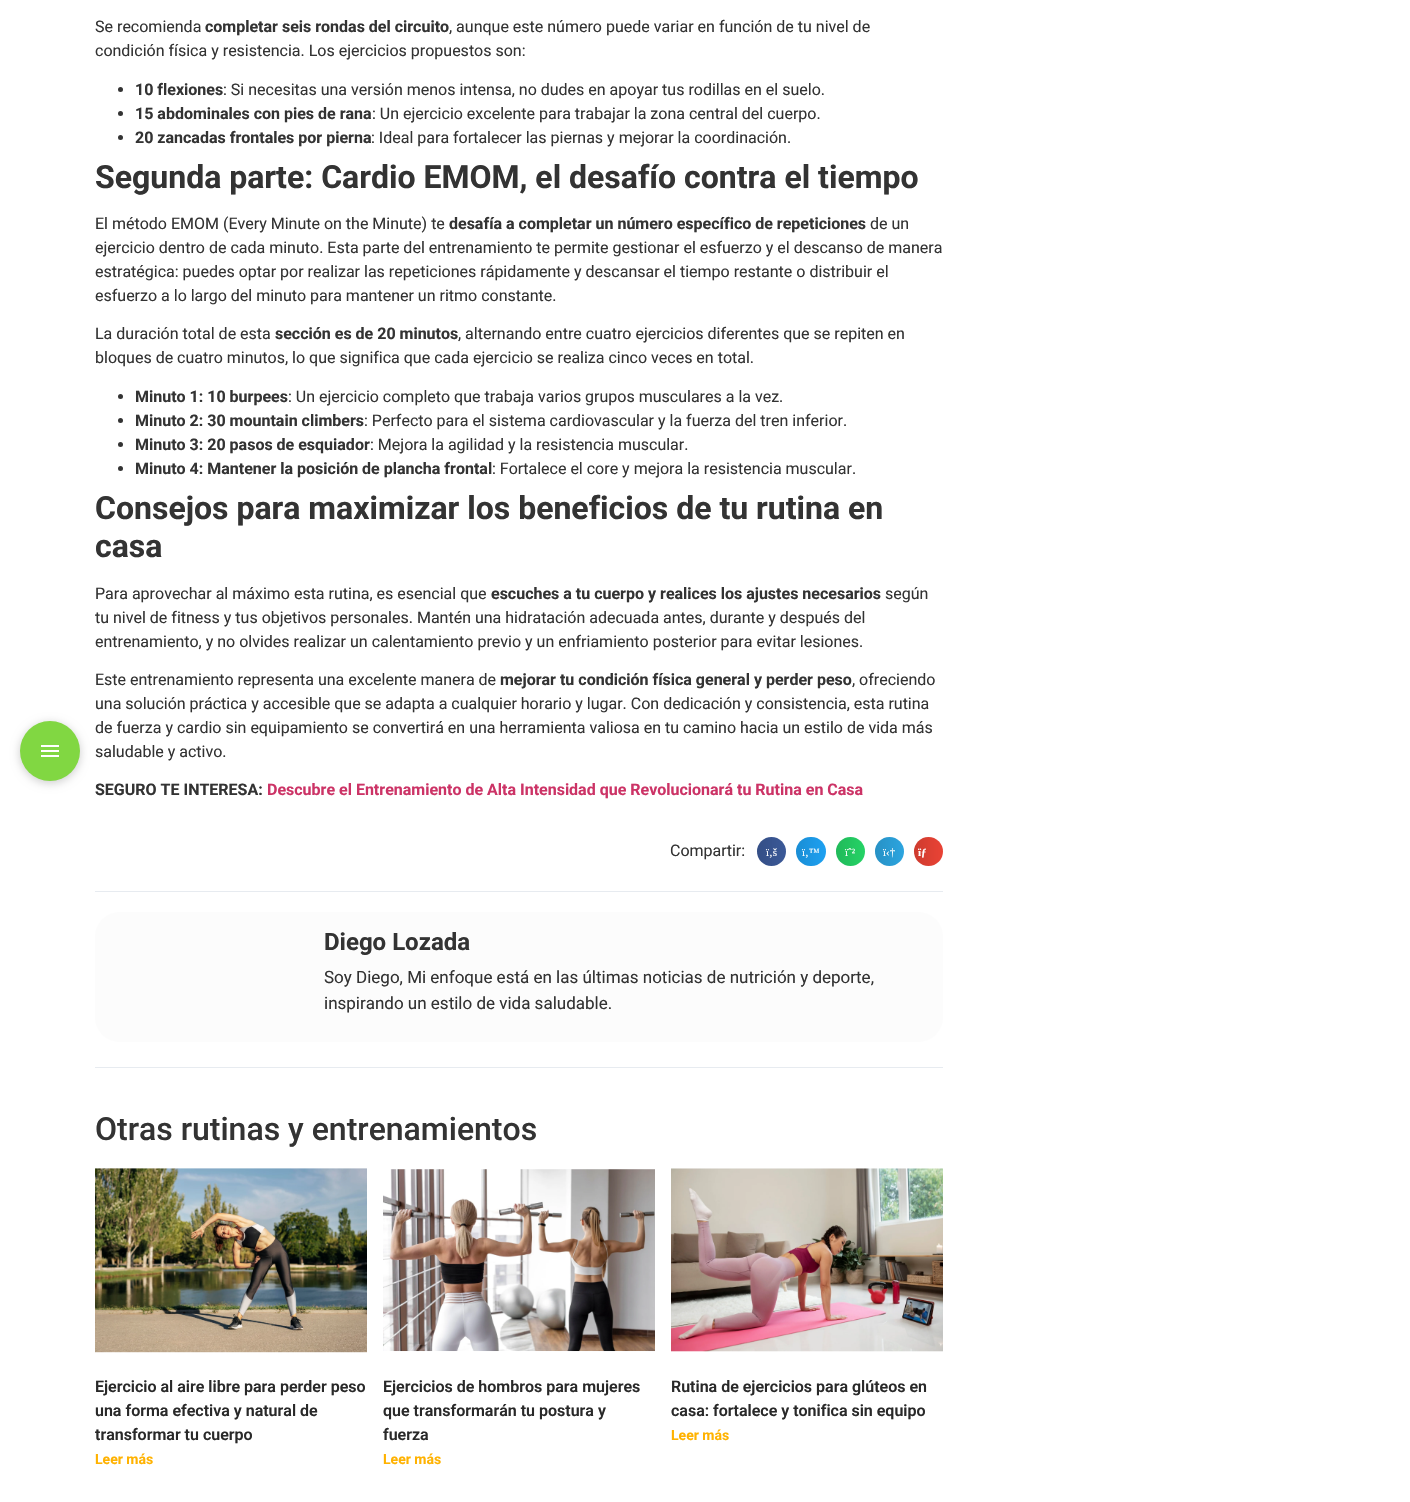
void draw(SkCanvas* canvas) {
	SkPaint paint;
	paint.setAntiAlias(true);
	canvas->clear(0xffffffff);
	paint.setColor(0x33000000);
	paint.setMaskFilter(SkMaskFilter::MakeBlur(kNormal_SkBlurStyle, 5));
	canvas->drawRoundRect(SkRect::MakeXYWH(20, 723, 60, 60), 30, 30, paint);
	paint.setMaskFilter(nullptr);
	paint.setColor(0xff81d742);
	canvas->drawCircle(50, 751, 30, paint);
	canvas->drawImageRect(SkImages::DeferredFromEncodedData(SkData::MakeFromFileName("img1.png")), SkRect::MakeXYWH(41, 745, 18, 12), SkSamplingOptions());
	SkFont f1(fontMgr->matchFamilyStyle("Roboto", SkFontStyle::Normal()), 16);
	f1.setSubpixel(true);
	paint.setColor(0xff333333);
	canvas->drawString("Se recomienda", 95, 32, f1, paint);
	SkFont f2(fontMgr->matchFamilyStyle("Roboto", SkFontStyle::Bold()), 16);
	f2.setSubpixel(true);
	canvas->drawString("completar seis rondas del circuito", 205, 32, f2, paint);
	canvas->drawString(", aunque este número puede variar en función de tu nivel de", 449, 32, f1, paint);
	canvas->drawString("condición física y resistencia. Los ejercicios propuestos son:", 95, 56, f1, paint);
	canvas->drawCircle(120.5, 89.5, 2.5, paint);
	canvas->drawString("10 flexiones", 135, 95, f2, paint);
	canvas->drawString(": Si necesitas una versión menos intensa, no dudes en apoyar tus rodillas en el suelo.", 223, 95, f1, paint);
	canvas->drawCircle(120.5, 113.5, 2.5, paint);
	canvas->drawString("15 abdominales con pies de rana", 135, 119, f2, paint);
	canvas->drawString(": Un ejercicio excelente para trabajar la zona central del cuerpo.", 372, 119, f1, paint);
	canvas->drawCircle(120.5, 137.5, 2.5, paint);
	canvas->drawString("20 zancadas frontales por pierna", 135, 143, f2, paint);
	canvas->drawString(": Ideal para fortalecer las piernas y mejorar la coordinación.", 371, 143, f1, paint);
	SkFont f3(fontMgr->matchFamilyStyle("Roboto", SkFontStyle::Bold()), 32);
	f3.setSubpixel(true);
	canvas->drawString("Segunda parte: Cardio EMOM, el desafío contra el tiempo", 95, 188, f3, paint);
	canvas->drawString("El método EMOM (Every Minute on the Minute) te", 95, 229, f1, paint);
	canvas->drawString("desafía a completar un número específico de repeticiones", 449, 229, f2, paint);
	canvas->drawString("de un", 870, 229, f1, paint);
	canvas->drawString("ejercicio dentro de cada minuto. Esta parte del entrenamiento te permite gestionar el esfuerzo y el descanso de manera", 95, 253, f1, paint);
	canvas->drawString("estratégica: puedes optar por realizar las repeticiones rápidamente y descansar el tiempo restante o distribuir el", 95, 277, f1, paint);
	canvas->drawString("esfuerzo a lo largo del minuto para mantener un ritmo constante.", 95, 301, f1, paint);
	canvas->drawString("La duración total de esta", 95, 339, f1, paint);
	canvas->drawString("sección es de 20 minutos", 275, 339, f2, paint);
	canvas->drawString(", alternando entre cuatro ejercicios diferentes que se repiten en", 458, 339, f1, paint);
	canvas->drawString("bloques de cuatro minutos, lo que significa que cada ejercicio se realiza cinco veces en total.", 95, 363, f1, paint);
	canvas->drawCircle(120.5, 396.5, 2.5, paint);
	canvas->drawString("Minuto 1: 10 burpees", 135, 402, f2, paint);
	canvas->drawString(": Un ejercicio completo que trabaja varios grupos musculares a la vez.", 288, 402, f1, paint);
	canvas->drawCircle(120.5, 420.5, 2.5, paint);
	canvas->drawString("Minuto 2: 30 mountain climbers", 135, 426, f2, paint);
	canvas->drawString(": Perfecto para el sistema cardiovascular y la fuerza del tren inferior.", 364, 426, f1, paint);
	canvas->drawCircle(120.5, 444.5, 2.5, paint);
	canvas->drawString("Minuto 3: 20 pasos de esquiador", 135, 450, f2, paint);
	canvas->drawString(": Mejora la agilidad y la resistencia muscular.", 370, 450, f1, paint);
	canvas->drawCircle(120.5, 468.5, 2.5, paint);
	canvas->drawString("Minuto 4: Mantener la posición de plancha frontal", 135, 474, f2, paint);
	canvas->drawString(": Fortalece el core y mejora la resistencia muscular.", 492, 474, f1, paint);
	canvas->drawString("Consejos para maximizar los beneficios de tu rutina en", 95, 519, f3, paint);
	canvas->drawString("casa", 95, 557, f3, paint);
	canvas->drawString("Para aprovechar al máximo esta rutina, es esencial que", 95, 599, f1, paint);
	canvas->drawString("escuches a tu cuerpo y realices los ajustes necesarios", 491, 599, f2, paint);
	canvas->drawString("según", 885, 599, f1, paint);
	canvas->drawString("tu nivel de fitness y tus objetivos personales. Mantén una hidratación adecuada antes, durante y después del", 95, 623, f1, paint);
	canvas->drawString("entrenamiento, y no olvides realizar un calentamiento previo y un enfriamiento posterior para evitar lesiones.", 95, 647, f1, paint);
	canvas->drawString("Este entrenamiento representa una excelente manera de", 95, 685, f1, paint);
	canvas->drawString("mejorar tu condición física general y perder peso", 500, 685, f2, paint);
	canvas->drawString(", ofreciendo", 852, 685, f1, paint);
	canvas->drawString("una solución práctica y accesible que se adapta a cualquier horario y lugar. Con dedicación y consistencia, esta rutina", 95, 709, f1, paint);
	canvas->drawString("de fuerza y cardio sin equipamiento se convertirá en una herramienta valiosa en tu camino hacia un estilo de vida más", 95, 733, f1, paint);
	canvas->drawString("saludable y activo.", 95, 757, f1, paint);
	canvas->drawString("SEGURO TE INTERESA:", 95, 795, f2, paint);
	paint.setColor(0xffcc3366);
	canvas->drawString("Descubre el Entrenamiento de Alta Intensidad que Revolucionará tu Rutina en Casa", 267, 795, f2, paint);
	paint.setColor(0xff333333);
	canvas->drawString("Compartir:", 670, 856, f1, paint);
	paint.setColor(0xff3b5998);
	canvas->drawCircle(771.5, 851.5, 14.5, paint);
	{
		const SkColor colors[] = {0x1f000000, 0x00000000};
		const float stops[] = {0, 1};
		const SkPoint ends[] = {{757, 852}, {786, 852}};
		paint.setShader(SkGradientShader::MakeLinear(ends, colors, stops, 2, SkTileMode::kClamp));
		paint.setAlpha(255);
	}
	canvas->drawCircle(771.5, 851.5, 14.5, paint);
	SkFont f4(fontMgr->matchFamilyStyle("Liberation Serif", SkFontStyle::Normal()), 11);
	f4.setSubpixel(true);
	paint.setShader(nullptr);
	paint.setColor(0xffffffff);
	canvas->drawString("ï‚š", 766, 856, f4, paint);
	paint.setColor(0xff1da1f2);
	canvas->drawRoundRect(SkRect::MakeXYWH(796, 837, 30, 29), 14.5, 14.5, paint);
	{
		const SkColor colors[] = {0x1f000000, 0x00000000};
		const float stops[] = {0, 1};
		const SkPoint ends[] = {{796, 852}, {826, 852}};
		paint.setShader(SkGradientShader::MakeLinear(ends, colors, stops, 2, SkTileMode::kClamp));
		paint.setAlpha(255);
	}
	canvas->drawRoundRect(SkRect::MakeXYWH(796, 837, 30, 29), 14.5, 14.5, paint);
	paint.setShader(nullptr);
	paint.setColor(0xffffffff);
	canvas->drawString("ï‚™", 802, 856, f4, paint);
	paint.setColor(0xff25d366);
	canvas->drawCircle(850.5, 851.5, 14.5, paint);
	{
		const SkColor colors[] = {0x1f000000, 0x00000000};
		const float stops[] = {0, 1};
		const SkPoint ends[] = {{836, 852}, {865, 852}};
		paint.setShader(SkGradientShader::MakeLinear(ends, colors, stops, 2, SkTileMode::kClamp));
		paint.setAlpha(255);
	}
	canvas->drawCircle(850.5, 851.5, 14.5, paint);
	paint.setShader(nullptr);
	paint.setColor(0xffffffff);
	canvas->drawString("ïˆ²", 845, 856, f4, paint);
	paint.setColor(0xff2ca5e0);
	canvas->drawCircle(889.5, 851.5, 14.5, paint);
	{
		const SkColor colors[] = {0x1f000000, 0x00000000};
		const float stops[] = {0, 1};
		const SkPoint ends[] = {{875, 852}, {904, 852}};
		paint.setShader(SkGradientShader::MakeLinear(ends, colors, stops, 2, SkTileMode::kClamp));
		paint.setAlpha(255);
	}
	canvas->drawCircle(889.5, 851.5, 14.5, paint);
	paint.setShader(nullptr);
	paint.setColor(0xffffffff);
	canvas->drawString("ï‹†", 883, 856, f4, paint);
	paint.setColor(0xffea4335);
	canvas->drawCircle(928.5, 851.5, 14.5, paint);
	{
		const SkColor colors[] = {0x1f000000, 0x00000000};
		const float stops[] = {0, 1};
		const SkPoint ends[] = {{914, 852}, {943, 852}};
		paint.setShader(SkGradientShader::MakeLinear(ends, colors, stops, 2, SkTileMode::kClamp));
		paint.setAlpha(255);
	}
	canvas->drawCircle(928.5, 851.5, 14.5, paint);
	SkFont f5(fontMgr->matchFamilyStyle("Liberation Serif", SkFontStyle::Bold()), 11);
	f5.setSubpixel(true);
	paint.setShader(nullptr);
	paint.setColor(0xffffffff);
	canvas->drawString("ïƒ", 918, 856, f5, paint);
	paint.setColor(0xffe7ebf0);
	canvas->drawRect(SkRect::MakeXYWH(95, 891, 848, 1), paint);
	paint.setColor(0xfffcfcfc);
	canvas->drawRoundRect(SkRect::MakeXYWH(95, 912, 848, 130), 25, 25, paint);
	SkFont f6(fontMgr->matchFamilyStyle("Roboto", SkFontStyle::Bold()), 24);
	f6.setSubpixel(true);
	paint.setColor(0xff333333);
	canvas->drawString("Diego Lozada", 324, 950, f6, paint);
	SkFont f7(fontMgr->matchFamilyStyle("Roboto", SkFontStyle::Normal()), 17);
	f7.setSubpixel(true);
	canvas->drawString("Soy Diego, Mi enfoque está en las últimas noticias de nutrición y deporte,", 324, 983, f7, paint);
	canvas->drawString("inspirando un estilo de vida saludable.", 324, 1009, f7, paint);
	paint.setColor(0xffe7ebf0);
	canvas->drawRect(SkRect::MakeXYWH(95, 1067, 848, 1), paint);
	SkFont f8(fontMgr->matchFamilyStyle("Roboto", SkFontStyle(500, SkFontStyle::kNormal_Width, SkFontStyle::kUpright_Slant)), 32);
	f8.setSubpixel(true);
	paint.setColor(0xff333333);
	canvas->drawString("Otras rutinas y entrenamientos", 95, 1140, f8, paint);
	canvas->drawImageRect(SkImages::DeferredFromEncodedData(SkData::MakeFromFileName("img2.png")), SkRect::MakeXYWH(95, 1168, 272, 185), SkSamplingOptions());
	SkFont f9(fontMgr->matchFamilyStyle("Roboto", SkFontStyle(600, SkFontStyle::kNormal_Width, SkFontStyle::kUpright_Slant)), 16);
	f9.setSubpixel(true);
	paint.setColor(0xff292929);
	canvas->drawString("Ejercicio al aire libre para perder peso", 95, 1392, f9, paint);
	canvas->drawString("una forma efectiva y natural de", 95, 1416, f9, paint);
	canvas->drawString("transformar tu cuerpo", 95, 1440, f9, paint);
	SkFont f10(fontMgr->matchFamilyStyle("Roboto", SkFontStyle::Bold()), 14);
	f10.setSubpixel(true);
	paint.setColor(0xffffb200);
	canvas->drawString("Leer más", 95, 1464, f10, paint);
	canvas->drawImageRect(SkImages::DeferredFromEncodedData(SkData::MakeFromFileName("img3.png")), SkRect::MakeXYWH(383, 1169, 272, 183), SkSamplingOptions());
	paint.setColor(0xff292929);
	canvas->drawString("Ejercicios de hombros para mujeres", 383, 1392, f9, paint);
	canvas->drawString("que transformarán tu postura y", 383, 1416, f9, paint);
	canvas->drawString("fuerza", 383, 1440, f9, paint);
	paint.setColor(0xffffb200);
	canvas->drawString("Leer más", 383, 1464, f10, paint);
	canvas->drawImageRect(SkImages::DeferredFromEncodedData(SkData::MakeFromFileName("img4.png")), SkRect::MakeXYWH(671, 1168, 272, 184), SkSamplingOptions());
	paint.setColor(0xff292929);
	canvas->drawString("Rutina de ejercicios para glúteos en", 671, 1392, f9, paint);
	canvas->drawString("casa: fortalece y tonifica sin equipo", 671, 1416, f9, paint);
	paint.setColor(0xffffb200);
	canvas->drawString("Leer más", 671, 1440, f10, paint);
}
